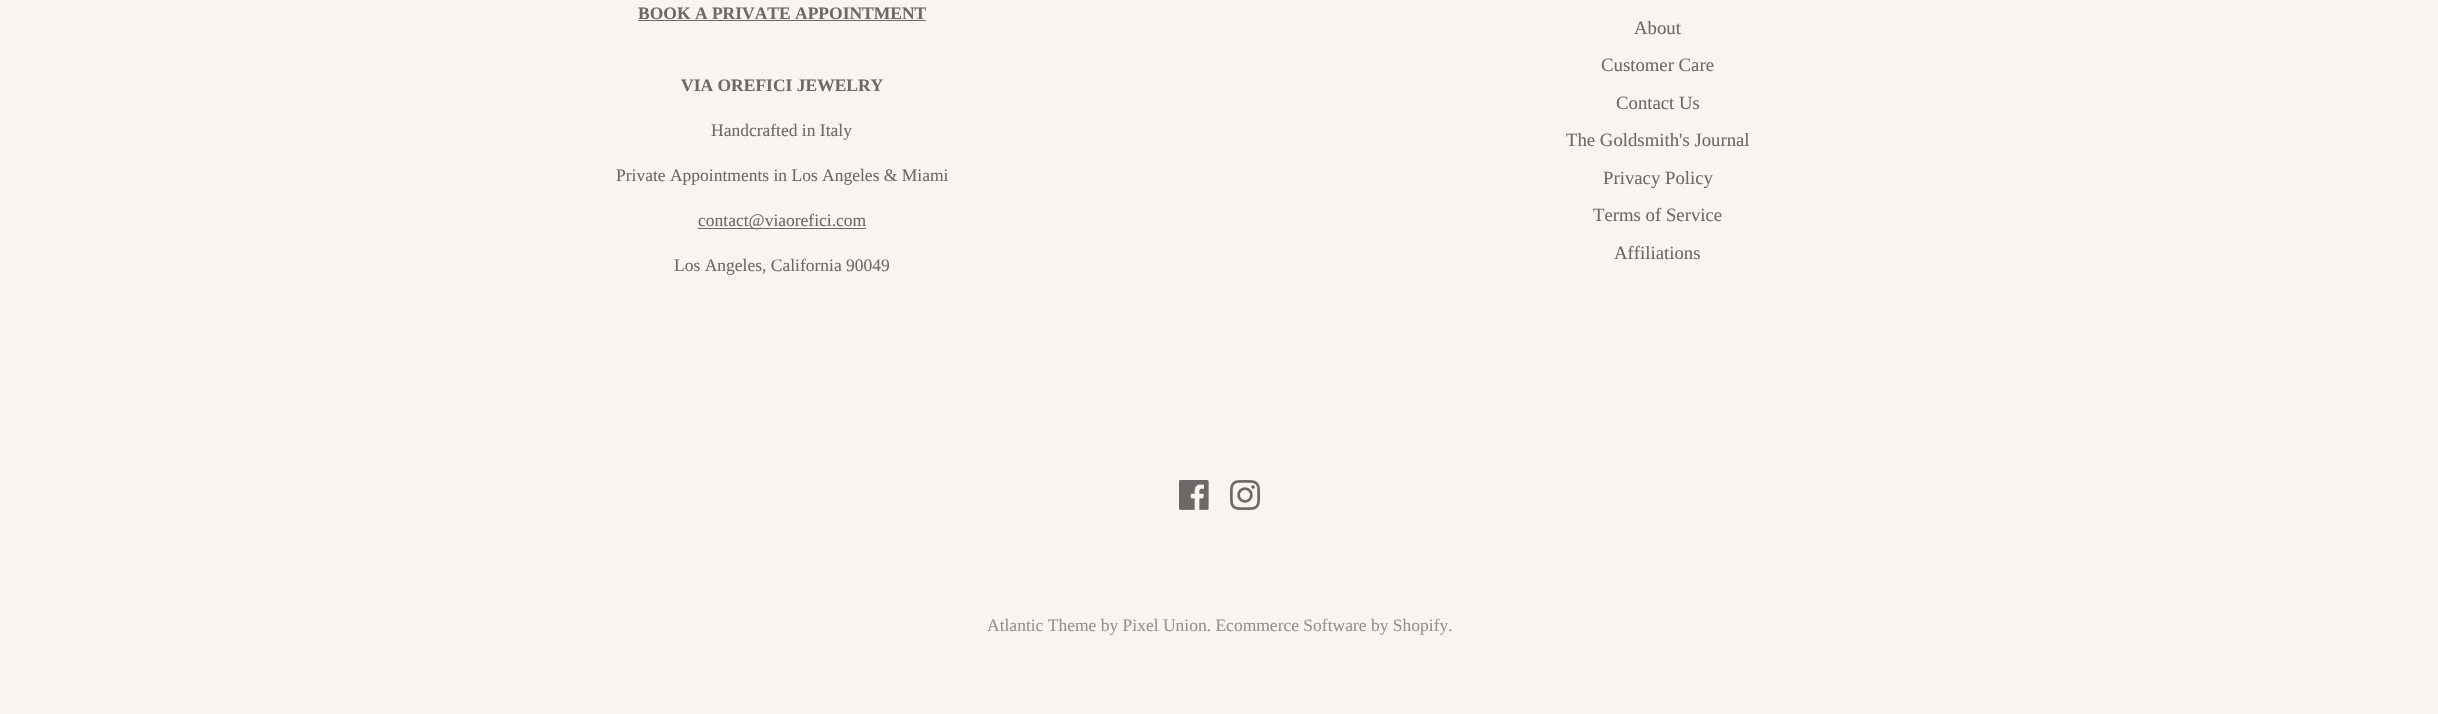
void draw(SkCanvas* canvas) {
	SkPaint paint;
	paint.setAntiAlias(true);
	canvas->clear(0xfff8f5f0);
	SkFont f1(fontMgr->matchFamilyStyle("Liberation Serif", SkFontStyle::Bold()), 17.5);
	f1.setSubpixel(true);
	paint.setColor(0xff6b6a68);
	canvas->drawString("BOOK A PRIVATE APPOINTMENT", 638, 19, f1, paint);
	canvas->drawRect(SkRect::MakeXYWH(638, 20, 288, 1), paint);
	canvas->drawString("VIA OREFICI JEWELRY", 681, 91, f1, paint);
	SkFont f2(fontMgr->matchFamilyStyle("Liberation Serif", SkFontStyle::Normal()), 17.5);
	f2.setSubpixel(true);
	canvas->drawString("Handcrafted in Italy", 711, 136, f2, paint);
	canvas->drawString("Private Appointments in Los Angeles & Miami", 616, 181, f2, paint);
	canvas->drawRect(SkRect::MakeXYWH(698, 228, 168, 1), paint);
	canvas->drawString("contact@viaorefici.com", 698, 226, f2, paint);
	canvas->drawString("Los Angeles, California 90049", 674, 271, f2, paint);
	SkFont f3(fontMgr->matchFamilyStyle("Liberation Serif", SkFontStyle::Normal()), 18.75);
	f3.setSubpixel(true);
	canvas->drawString("About", 1634, 34, f3, paint);
	canvas->drawString("Customer Care", 1601, 71, f3, paint);
	canvas->drawString("Contact Us", 1616, 109, f3, paint);
	canvas->drawString("The Goldsmith's Journal", 1566, 146, f3, paint);
	canvas->drawString("Privacy Policy", 1603, 184, f3, paint);
	canvas->drawString("Terms of Service", 1593, 221, f3, paint);
	canvas->drawString("Affiliations", 1614, 259, f3, paint);
	canvas->drawImageRect(SkImages::DeferredFromEncodedData(SkData::MakeFromFileName("img1.png")), SkRect::MakeXYWH(1179, 480, 30, 30), SkSamplingOptions());
	canvas->drawImageRect(SkImages::DeferredFromEncodedData(SkData::MakeFromFileName("img2.png")), SkRect::MakeXYWH(1230, 480, 30, 30), SkSamplingOptions());
	paint.setColor(0xff93928f);
	canvas->drawString("Atlantic Theme by Pixel Union. Ecommerce Software by Shopify.", 987, 631, f2, paint);
}
